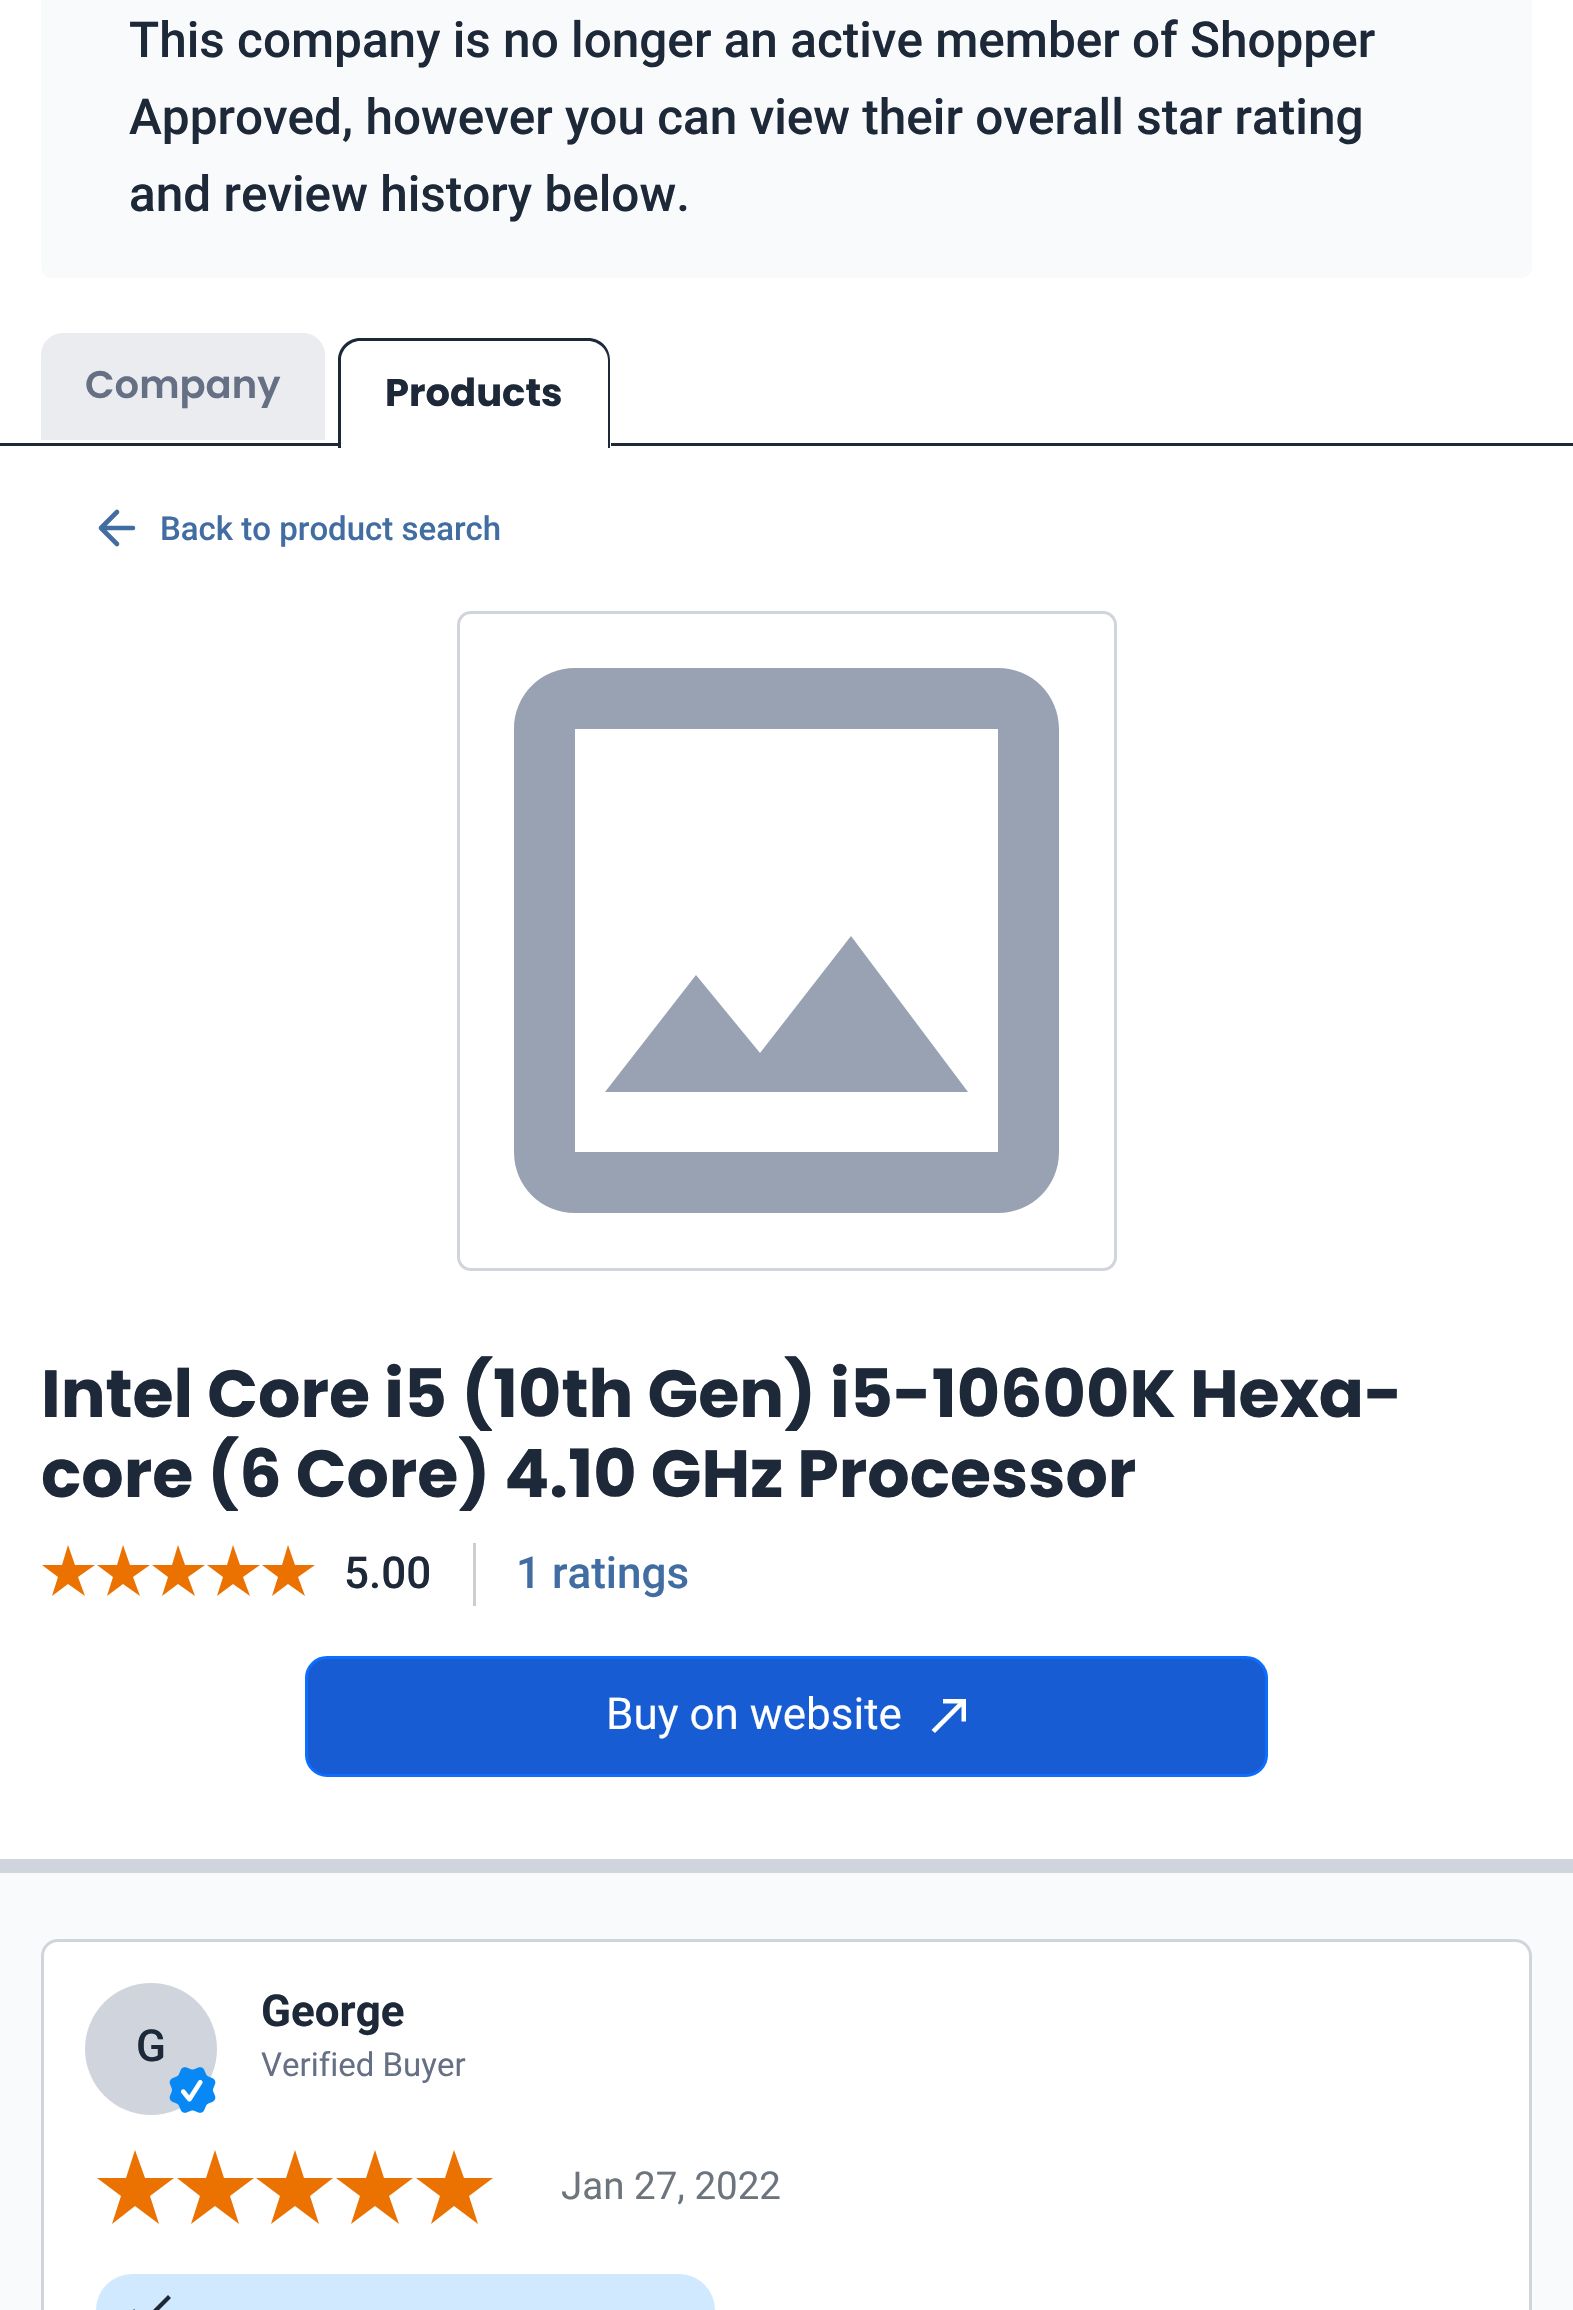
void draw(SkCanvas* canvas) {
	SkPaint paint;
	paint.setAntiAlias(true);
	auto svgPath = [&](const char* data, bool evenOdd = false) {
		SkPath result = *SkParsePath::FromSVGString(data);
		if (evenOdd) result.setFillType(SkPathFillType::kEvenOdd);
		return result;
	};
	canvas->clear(0xffffffff);
	paint.setColor(0xfff9fafb);
	canvas->drawRoundRect(SkRect::MakeXYWH(41, -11, 1491, 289), 11, 11, paint);
	SkFont f1(fontMgr->matchFamilyStyle("Roboto", SkFontStyle(500, SkFontStyle::kNormal_Width, SkFontStyle::kUpright_Slant)), 49.5);
	f1.setSubpixel(true);
	paint.setColor(0xff1d2939);
	canvas->drawString("This company is no longer an active member of Shopper", 129, 57, f1, paint);
	canvas->drawString("Approved, however you can view their overall star rating", 129, 134, f1, paint);
	canvas->drawString("and review history below.", 129, 211, f1, paint);
	canvas->drawRect(SkRect::MakeXYWH(0, 443, 1573, 3), paint);
	paint.setColor(0xffeaecf0);
	canvas->drawPath(svgPath("M63 333H303C315 333 325 343 325 355V440H41V355C41 343 51 333 63 333Z"), paint);
	SkFont f2(fontMgr->matchFamilyStyle("Poppins", SkFontStyle(600, SkFontStyle::kNormal_Width, SkFontStyle::kUpright_Slant)), 38.5);
	f2.setSubpixel(true);
	paint.setColor(0xff667085);
	canvas->drawString("Company", 85, 398, f2, paint);
	paint.setColor(0xffffffff);
	canvas->drawPath(svgPath("M360 338H589C601 338 611 348 611 360V448H338V360C338 348 348 338 360 338Z"), paint);
	paint.setColor(0xff1d2939);
	canvas->drawPath(svgPath("M360 338H588C601 338 610 348 610 360V448H338V360C338 348 348 338 360 338ZM360 341H588C599 341 608 350 608 360V448H341V360C341 350 350 341 360 341Z", true), paint);
	SkFont f3(fontMgr->matchFamilyStyle("Poppins", SkFontStyle::Bold()), 38.5);
	f3.setSubpixel(true);
	canvas->drawString("Products", 385, 406, f3, paint);
	paint.setStroke(true);
	paint.setStrokeWidth(4.6);
	paint.setStrokeCap(SkPaint::kRound_Cap);
	paint.setStrokeJoin(SkPaint::kRound_Join);
	paint.setColor(0xff416da2);
	canvas->drawPath(svgPath("M133 528H101M101 528L117 544M101 528L117 512"), paint);
	SkFont f4(fontMgr->matchFamilyStyle("Roboto", SkFontStyle(500, SkFontStyle::kNormal_Width, SkFontStyle::kUpright_Slant)), 33);
	f4.setSubpixel(true);
	paint.setStroke(false);
	canvas->drawString("Back to product search", 160, 540, f4, paint);
	paint.setStroke(true);
	paint.setStrokeWidth(3);
	paint.setStrokeCap(SkPaint::kButt_Cap);
	paint.setStrokeJoin(SkPaint::kMiter_Join);
	paint.setColor(0xffd0d5dd);
	canvas->drawRoundRect(SkRect::MakeXYWH(458.5, 612.5, 657, 657), 12.5, 12.5, paint);
	paint.setStroke(false);
	paint.setColor(0xff98a2b3);
	canvas->drawPath(svgPath("M998 729V1152H575V729ZM998 668H575C541 668 514 695 514 729V1152C514 1186 541 1213 575 1213H998C1032 1213 1059 1186 1059 1152V729C1059 695 1032 668 998 668ZM851 936L760 1053L696 975L605 1092H968Z"), paint);
	SkFont f5(fontMgr->matchFamilyStyle("Poppins", SkFontStyle::Bold()), 66.6);
	f5.setSubpixel(true);
	paint.setColor(0xff1d2939);
	canvas->drawString("Intel Core i5 (10th Gen) i5-10600K Hexa-", 41, 1417, f5, paint);
	canvas->drawString("core (6 Core) 4.10 GHz Processor", 41, 1497, f5, paint);
	paint.setColor(0xffeb7100);
	canvas->drawPath(svgPath("M68 1545L75 1565H95L78 1577L85 1596L68 1584L52 1596L58 1577L42 1565H62Z"), paint);
	canvas->drawPath(svgPath("M123 1545L130 1565H150L133 1577L140 1596L123 1584L107 1596L113 1577L97 1565H117Z"), paint);
	canvas->drawPath(svgPath("M178 1545L185 1565H205L188 1577L195 1596L178 1584L162 1596L168 1577L152 1565H172Z"), paint);
	canvas->drawPath(svgPath("M233 1545L240 1565H260L243 1577L250 1596L233 1584L217 1596L223 1577L207 1565H227Z"), paint);
	canvas->drawPath(svgPath("M288 1545L295 1565H315L298 1577L305 1596L288 1584L272 1596L278 1577L262 1565H282Z"), paint);
	SkFont f6(fontMgr->matchFamilyStyle("Roboto", SkFontStyle(500, SkFontStyle::kNormal_Width, SkFontStyle::kUpright_Slant)), 44);
	f6.setSubpixel(true);
	paint.setColor(0xff1d2939);
	canvas->drawString("5.00", 344, 1588, f6, paint);
	paint.setColor(0xffcdced2);
	canvas->drawRect(SkRect::MakeXYWH(473, 1543, 3, 63), paint);
	paint.setColor(0xff416da2);
	canvas->drawString("1 ratings", 516, 1588, f6, paint);
	paint.setColor(0xff175cd3);
	canvas->drawRoundRect(SkRect::MakeXYWH(306.5, 1657.5, 960, 118), 20.5, 20.5, paint);
	paint.setStroke(true);
	paint.setColor(0xff0d6efd);
	canvas->drawRoundRect(SkRect::MakeXYWH(306.5, 1657.5, 960, 118), 20.5, 20.5, paint);
	SkFont f7(fontMgr->matchFamilyStyle("Roboto", SkFontStyle::Normal()), 44);
	f7.setSubpixel(true);
	paint.setStroke(false);
	paint.setColor(0xffffffff);
	canvas->drawString("Buy on website", 606, 1729, f7, paint);
	canvas->drawPath(svgPath("M943 1699V1703.5H958L931.5 1730L935 1733L961.5 1706.5V1721.5H966V1699Z"), paint);
	paint.setColor(0xfff9fafb);
	canvas->drawRect(SkRect::MakeXYWH(0, 1873, 1573, 437), paint);
	paint.setColor(0xffd0d5dd);
	canvas->drawRect(SkRect::MakeXYWH(0, 1859, 1573, 14), paint);
	paint.setColor(0xffffffff);
	canvas->drawRoundRect(SkRect::MakeXYWH(42.5, 1940.5, 1488, 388), 15.5, 15.5, paint);
	paint.setStroke(true);
	paint.setColor(0xffd0d5dd);
	canvas->drawRoundRect(SkRect::MakeXYWH(42.5, 1940.5, 1488, 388), 15.5, 15.5, paint);
	paint.setStroke(false);
	canvas->drawCircle(151, 2049, 66, paint);
	paint.setColor(0xff1d2939);
	canvas->drawString("G", 136, 2061, f6, paint);
	canvas->drawImageRect(SkImages::DeferredFromEncodedData(SkData::MakeFromFileName("img1.png")), SkRect::MakeXYWH(169, 2067, 47, 46), SkSamplingOptions());
	SkFont f8(fontMgr->matchFamilyStyle("Roboto", SkFontStyle::Bold()), 44);
	f8.setSubpixel(true);
	canvas->drawString("George", 261, 2026, f8, paint);
	SkFont f9(fontMgr->matchFamilyStyle("Roboto", SkFontStyle::Normal()), 33);
	f9.setSubpixel(true);
	paint.setColor(0xff667085);
	canvas->drawString("Verified Buyer", 261, 2076, f9, paint);
	paint.setColor(0xffeb7100);
	canvas->drawPath(svgPath("M135 2150L145 2178H174L150 2196L159 2224L135 2206L112 2224L121 2196L97 2178H126Z"), paint);
	canvas->drawPath(svgPath("M215 2150L224 2178H254L230 2196L239 2224L215 2206L191 2224L200 2196L177 2178H206Z"), paint);
	canvas->drawPath(svgPath("M295 2150L304 2178H333L310 2196L319 2224L295 2206L271 2224L280 2196L256 2178H286Z"), paint);
	canvas->drawPath(svgPath("M375 2150L384 2178H413L389 2196L399 2224L375 2206L351 2224L360 2196L336 2178H366Z"), paint);
	canvas->drawPath(svgPath("M454 2150L464 2178H493L469 2196L478 2224L454 2206L431 2224L440 2196L416 2178H445Z"), paint);
	SkFont f10(fontMgr->matchFamilyStyle("Roboto", SkFontStyle::Normal()), 38.5);
	f10.setSubpixel(true);
	paint.setColor(0xff6c757d);
	canvas->drawString("Jan 27, 2022", 561, 2199, f10, paint);
	paint.setColor(0xffd1e9ff);
	canvas->drawRoundRect(SkRect::MakeXYWH(96, 2274, 619, 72), 36, 36, paint);
	paint.setColor(0xff1d2939);
	canvas->drawPath(svgPath("M144 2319L134 2309L131 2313L144 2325L171 2298L168 2295Z"), paint);
}
